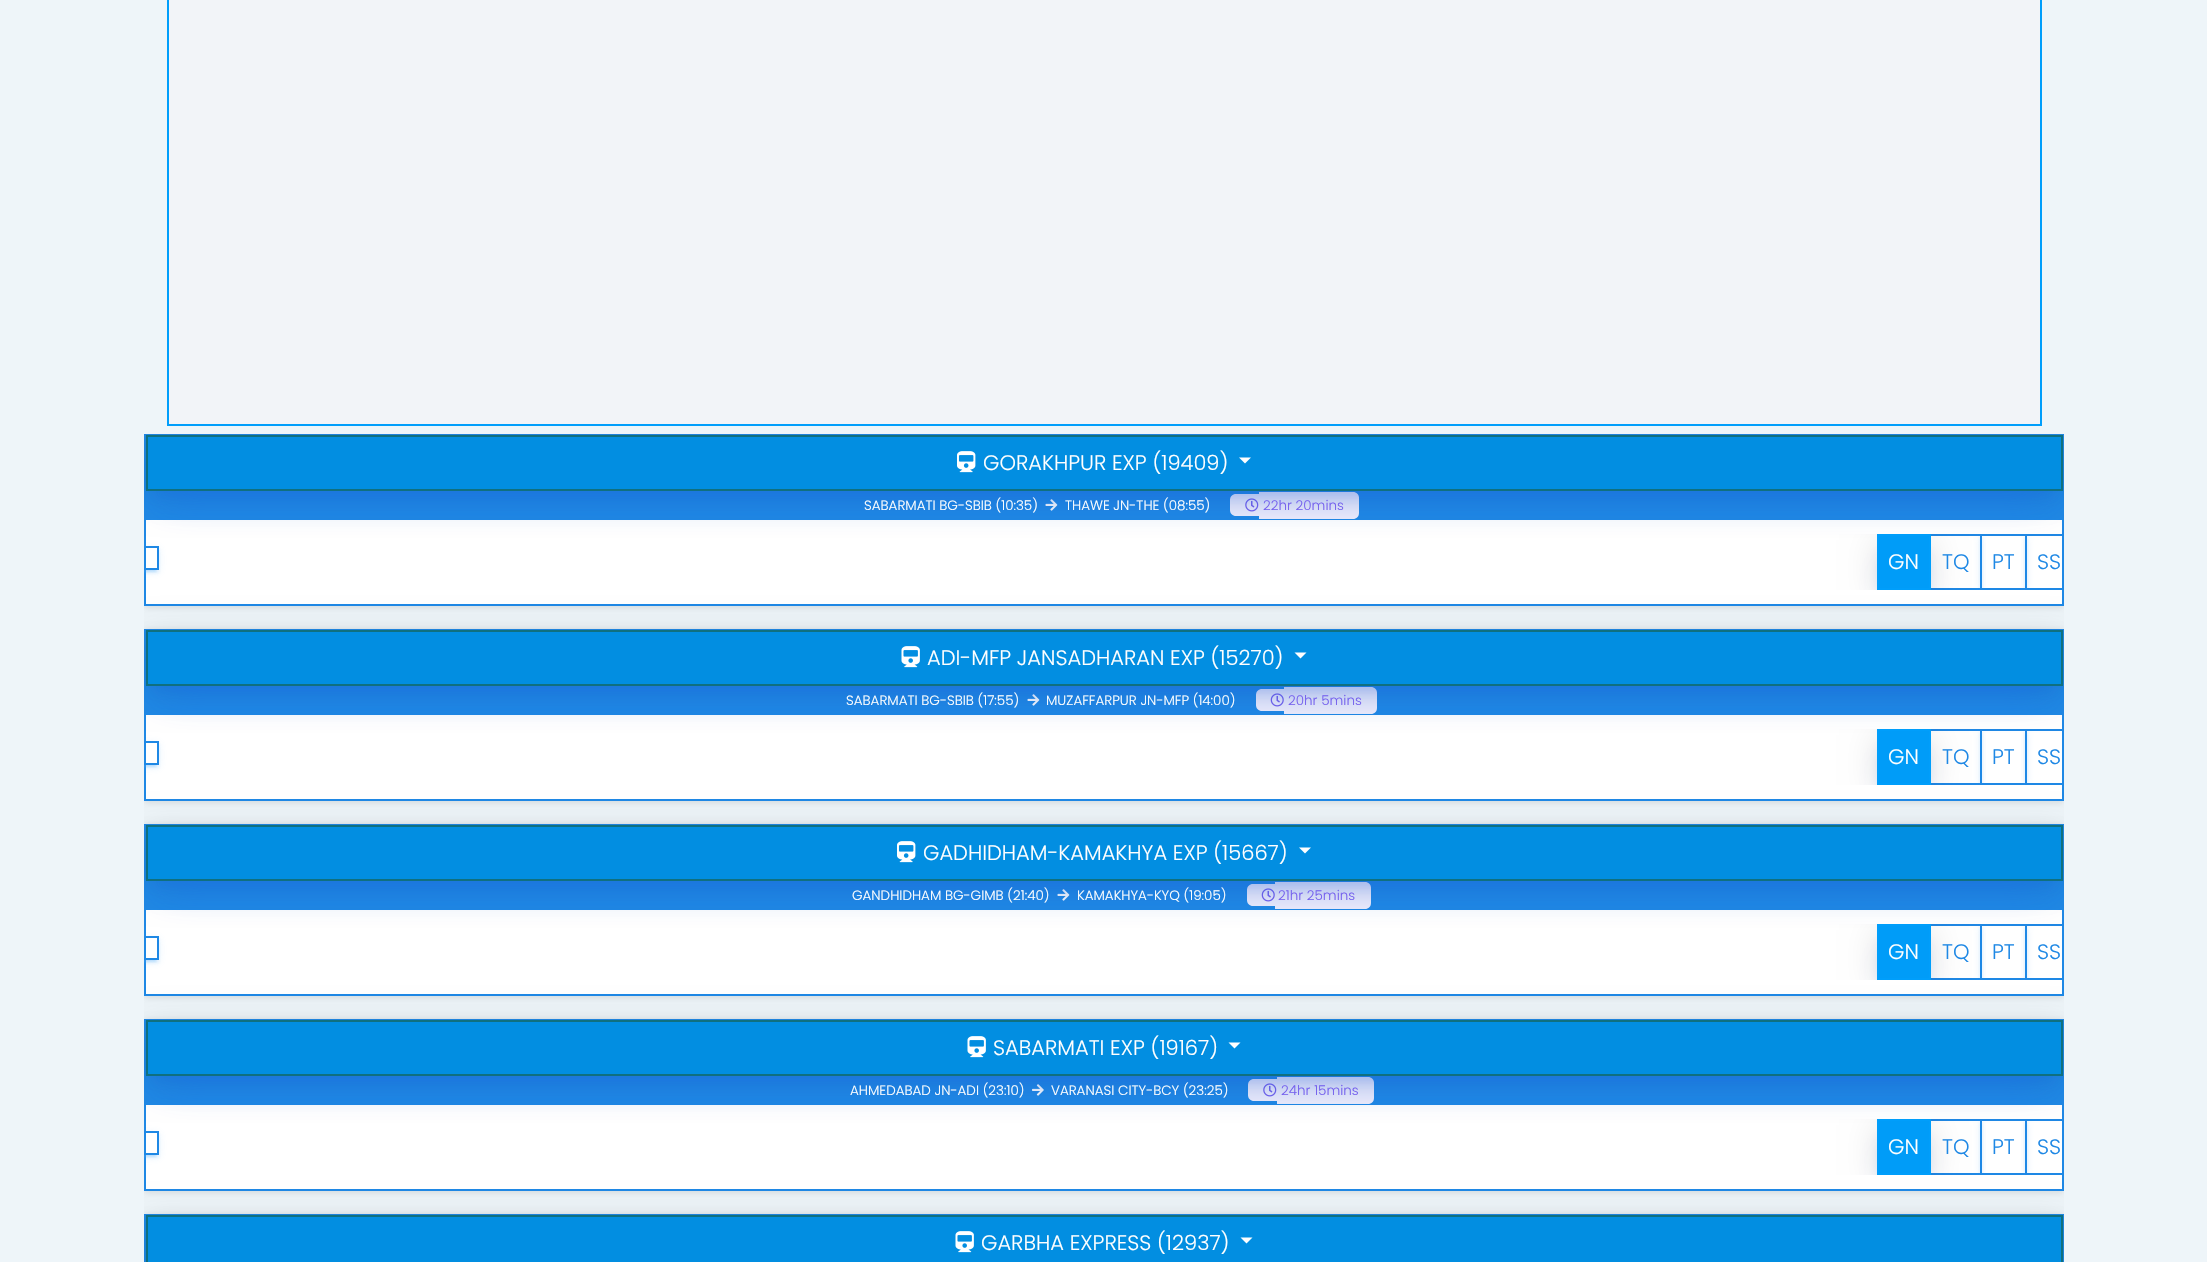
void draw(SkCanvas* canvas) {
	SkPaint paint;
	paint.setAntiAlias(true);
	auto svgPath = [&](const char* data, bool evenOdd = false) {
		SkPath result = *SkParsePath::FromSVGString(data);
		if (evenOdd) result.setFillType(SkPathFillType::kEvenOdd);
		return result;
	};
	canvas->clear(0xffeef5f9);
	paint.setColor(0xfff2f4f8);
	canvas->drawRect(SkRect::MakeXYWH(168, -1, 1873, 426), paint);
	paint.setStroke(true);
	paint.setStrokeWidth(2);
	paint.setColor(0xff009efb);
	canvas->drawRect(SkRect::MakeXYWH(168, -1, 1873, 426), paint);
	canvas->save();
	canvas->clipRect(SkRect::MakeXYWH(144, 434, 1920, 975));
	paint.setStroke(false);
	paint.setColor(0x1a000000);
	paint.setMaskFilter(SkMaskFilter::MakeBlur(kNormal_SkBlurStyle, 3));
	canvas->drawRect(SkRect::MakeXYWH(144, 435, 1920, 173), paint);
	paint.setMaskFilter(nullptr);
	canvas->restore();
	paint.setColor(0xffffffff);
	canvas->drawRect(SkRect::MakeXYWH(146, 520, 1916, 84), paint);
	paint.setStroke(true);
	paint.setColor(0xff1e88e5);
	canvas->drawRect(SkRect::MakeXYWH(145, 435, 1918, 170), paint);
	paint.setStroke(false);
	canvas->drawRect(SkRect::MakeXYWH(146, 491, 1916, 27), paint);
	canvas->drawRect(SkRect::MakeXYWH(146, 518, 1917, 2), paint);
	canvas->drawImageRect(SkImages::DeferredFromEncodedData(SkData::MakeFromFileName("img2.png")), SkRect::MakeXYWH(1045, 499, 13, 12), SkSamplingOptions());
	paint.setColor(0xfff1effd);
	canvas->drawPath(svgPath("M1236 494H1259V516H1236C1232.5 516 1230 513.5 1230 510V500C1230 496.5 1232.5 494 1236 494Z"), paint);
	canvas->drawPath(svgPath("M1259 492H1353C1356.5 492 1359 494.5 1359 498V513C1359 516.5 1356.5 519 1353 519H1259Z"), paint);
	canvas->drawImageRect(SkImages::DeferredFromEncodedData(SkData::MakeFromFileName("img3.png")), SkRect::MakeXYWH(1245, 498, 14, 14), SkSamplingOptions());
	canvas->save();
	canvas->clipRect(SkRect::MakeXYWH(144, 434, 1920, 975));
	paint.setColor(0x331769ff);
	paint.setMaskFilter(SkMaskFilter::MakeBlur(kNormal_SkBlurStyle, 7.5));
	canvas->drawRect(SkRect::MakeXYWH(153, 455, 1902, 40), paint);
	paint.setMaskFilter(nullptr);
	canvas->restore();
	canvas->save();
	canvas->clipRect(SkRect::MakeXYWH(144, 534, 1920, 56));
	canvas->clipPath(svgPath("M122 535H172V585H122ZM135 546H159V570H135Z", true), true);
	paint.setColor(0x1f42a5f5);
	paint.setMaskFilter(SkMaskFilter::MakeBlur(kNormal_SkBlurStyle, 4));
	canvas->drawRect(SkRect::MakeXYWH(135, 548, 24, 24), paint);
	paint.setMaskFilter(nullptr);
	canvas->restore();
	canvas->save();
	canvas->clipRect(SkRect::MakeXYWH(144, 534, 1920, 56));
	canvas->clipRect(SkRect::MakeXYWH(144, 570, 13, 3));
	paint.setColor(0x3342a5f5);
	paint.setMaskFilter(SkMaskFilter::MakeBlur(kNormal_SkBlurStyle, 1));
	canvas->drawRect(SkRect::MakeXYWH(138, 554, 18, 18), paint);
	paint.setMaskFilter(nullptr);
	canvas->restore();
	canvas->save();
	canvas->clipRect(SkRect::MakeXYWH(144, 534, 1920, 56));
	canvas->clipPath(svgPath("M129 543H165V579H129ZM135 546H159V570H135Z", true), true);
	paint.setColor(0x2442a5f5);
	paint.setMaskFilter(SkMaskFilter::MakeBlur(kNormal_SkBlurStyle, 1.5));
	canvas->drawRect(SkRect::MakeXYWH(135, 549, 24, 24), paint);
	paint.setMaskFilter(nullptr);
	canvas->restore();
	canvas->save();
	canvas->clipRect(SkRect::MakeXYWH(144, 534, 1920, 56));
	paint.setStroke(true);
	paint.setColor(0xff1e88e5);
	canvas->drawRect(SkRect::MakeXYWH(136, 547, 22, 22), paint);
	canvas->restore();
	canvas->save();
	canvas->clipRect(SkRect::MakeXYWH(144, 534, 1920, 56));
	canvas->clipRect(SkRect::MakeXYWH(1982, 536, 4, 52));
	paint.setStroke(false);
	paint.setColor(0x1f42a5f5);
	paint.setMaskFilter(SkMaskFilter::MakeBlur(kNormal_SkBlurStyle, 4));
	canvas->drawRect(SkRect::MakeXYWH(1929, 536, 53, 55), paint);
	paint.setMaskFilter(nullptr);
	canvas->restore();
	canvas->save();
	canvas->clipRect(SkRect::MakeXYWH(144, 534, 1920, 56));
	canvas->clipRect(SkRect::MakeXYWH(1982, 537, 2, 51));
	paint.setColor(0x2442a5f5);
	paint.setMaskFilter(SkMaskFilter::MakeBlur(kNormal_SkBlurStyle, 1.5));
	canvas->drawRect(SkRect::MakeXYWH(1929, 537, 53, 56), paint);
	paint.setMaskFilter(nullptr);
	canvas->restore();
	paint.setStroke(true);
	paint.setColor(0xff1e88e5);
	canvas->drawRect(SkRect::MakeXYWH(1930, 535, 51, 54), paint);
	canvas->save();
	canvas->clipRect(SkRect::MakeXYWH(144, 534, 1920, 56));
	canvas->clipPath(svgPath("M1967 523H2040V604H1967ZM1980 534H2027V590H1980Z", true), true);
	paint.setStroke(false);
	paint.setColor(0x1f42a5f5);
	paint.setMaskFilter(SkMaskFilter::MakeBlur(kNormal_SkBlurStyle, 4));
	canvas->drawRect(SkRect::MakeXYWH(1980, 536, 47, 55), paint);
	paint.setMaskFilter(nullptr);
	canvas->restore();
	canvas->save();
	canvas->clipRect(SkRect::MakeXYWH(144, 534, 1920, 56));
	canvas->clipPath(svgPath("M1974 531H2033V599H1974ZM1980 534H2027V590H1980Z", true), true);
	paint.setColor(0x2442a5f5);
	paint.setMaskFilter(SkMaskFilter::MakeBlur(kNormal_SkBlurStyle, 1.5));
	canvas->drawRect(SkRect::MakeXYWH(1980, 537, 47, 56), paint);
	paint.setMaskFilter(nullptr);
	canvas->restore();
	paint.setStroke(true);
	paint.setColor(0xff1e88e5);
	canvas->drawRect(SkRect::MakeXYWH(1981, 535, 45, 54), paint);
	canvas->save();
	canvas->clipRect(SkRect::MakeXYWH(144, 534, 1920, 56));
	canvas->clipRect(SkRect::MakeXYWH(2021, 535, 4, 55));
	paint.setStroke(false);
	paint.setColor(0x1f42a5f5);
	paint.setMaskFilter(SkMaskFilter::MakeBlur(kNormal_SkBlurStyle, 4));
	canvas->drawRect(SkRect::MakeXYWH(2025, 536, 48, 55), paint);
	paint.setMaskFilter(nullptr);
	canvas->restore();
	canvas->save();
	canvas->clipRect(SkRect::MakeXYWH(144, 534, 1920, 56));
	canvas->clipRect(SkRect::MakeXYWH(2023, 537, 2, 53));
	paint.setColor(0x2442a5f5);
	paint.setMaskFilter(SkMaskFilter::MakeBlur(kNormal_SkBlurStyle, 1.5));
	canvas->drawRect(SkRect::MakeXYWH(2025, 537, 48, 56), paint);
	paint.setMaskFilter(nullptr);
	canvas->restore();
	canvas->save();
	canvas->clipRect(SkRect::MakeXYWH(144, 534, 1920, 56));
	paint.setStroke(true);
	paint.setColor(0xff1e88e5);
	canvas->drawRect(SkRect::MakeXYWH(2026, 535, 46, 54), paint);
	canvas->restore();
	canvas->save();
	canvas->clipRect(SkRect::MakeXYWH(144, 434, 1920, 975));
	paint.setStroke(false);
	paint.setColor(0x1f000000);
	paint.setMaskFilter(SkMaskFilter::MakeBlur(kNormal_SkBlurStyle, 17));
	canvas->drawRect(SkRect::MakeXYWH(146, 441, 1917, 56), paint);
	paint.setMaskFilter(nullptr);
	paint.setColor(0x6b1769ff);
	paint.setMaskFilter(SkMaskFilter::MakeBlur(kNormal_SkBlurStyle, 19.5));
	canvas->drawRect(SkRect::MakeXYWH(164, 474, 1881, 20), paint);
	paint.setMaskFilter(nullptr);
	canvas->restore();
	paint.setColor(0xff028ee1);
	canvas->drawRect(SkRect::MakeXYWH(147, 436, 1915, 54), paint);
	paint.setStroke(true);
	paint.setColor(0xff10707f);
	canvas->drawRect(SkRect::MakeXYWH(147, 436, 1915, 54), paint);
	canvas->drawImageRect(SkImages::DeferredFromEncodedData(SkData::MakeFromFileName("img1.png")), SkRect::MakeXYWH(957, 451, 19, 22), SkSamplingOptions());
	SkFont f1(fontMgr->matchFamilyStyle("Poppins", SkFontStyle(300, SkFontStyle::kNormal_Width, SkFontStyle::kUpright_Slant)), 21);
	f1.setSubpixel(true);
	paint.setStroke(false);
	paint.setColor(0xffffffff);
	canvas->drawString("GORAKHPUR EXP (19409)", 983, 470, f1, paint);
	canvas->drawPath(svgPath("M1239 457.5H1251L1245 463.5Z"), paint);
	SkFont f2(fontMgr->matchFamilyStyle("Poppins", SkFontStyle(300, SkFontStyle::kNormal_Width, SkFontStyle::kUpright_Slant)), 13.5);
	f2.setSubpixel(true);
	canvas->drawString("SABARMATI BG-SBIB (10:35)", 864, 510, f2, paint);
	canvas->drawString("THAWE JN-THE (08:55)", 1065, 510, f2, paint);
	paint.setColor(0xff7460ee);
	canvas->drawString("22hr 20mins", 1263, 510, f2, paint);
	canvas->save();
	canvas->clipRect(SkRect::MakeXYWH(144, 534, 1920, 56));
	paint.setColor(0x331769ff);
	paint.setMaskFilter(SkMaskFilter::MakeBlur(kNormal_SkBlurStyle, 7.5));
	canvas->drawRect(SkRect::MakeXYWH(1884, 554, 39, 40), paint);
	paint.setMaskFilter(nullptr);
	canvas->restore();
	canvas->save();
	canvas->clipRect(SkRect::MakeXYWH(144, 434, 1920, 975));
	paint.setColor(0x1a000000);
	paint.setMaskFilter(SkMaskFilter::MakeBlur(kNormal_SkBlurStyle, 3));
	canvas->drawRect(SkRect::MakeXYWH(144, 630, 1920, 173), paint);
	paint.setMaskFilter(nullptr);
	canvas->restore();
	paint.setColor(0xffffffff);
	canvas->drawRect(SkRect::MakeXYWH(146, 715, 1916, 84), paint);
	paint.setStroke(true);
	paint.setColor(0xff1e88e5);
	canvas->drawRect(SkRect::MakeXYWH(145, 630, 1918, 170), paint);
	canvas->save();
	canvas->clipRect(SkRect::MakeXYWH(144, 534, 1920, 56));
	paint.setStroke(false);
	paint.setColor(0x1f000000);
	paint.setMaskFilter(SkMaskFilter::MakeBlur(kNormal_SkBlurStyle, 17));
	canvas->drawRect(SkRect::MakeXYWH(1877, 540, 54, 56), paint);
	paint.setMaskFilter(nullptr);
	paint.setColor(0x6b1769ff);
	paint.setMaskFilter(SkMaskFilter::MakeBlur(kNormal_SkBlurStyle, 19.5));
	canvas->drawRect(SkRect::MakeXYWH(1895, 573, 18, 20), paint);
	paint.setMaskFilter(nullptr);
	canvas->restore();
	paint.setColor(0xff009cf8);
	canvas->drawRect(SkRect::MakeXYWH(1878, 535, 52, 54), paint);
	paint.setStroke(true);
	paint.setColor(0xff009efb);
	canvas->drawRect(SkRect::MakeXYWH(1878, 535, 52, 54), paint);
	paint.setStroke(false);
	paint.setColor(0xffffffff);
	canvas->drawString("GN", 1888, 569, f1, paint);
	paint.setColor(0xff1e88e5);
	canvas->drawString("TQ", 1942, 569, f1, paint);
	canvas->drawString("PT", 1992, 569, f1, paint);
	canvas->drawString("SS", 2037, 569, f1, paint);
	canvas->drawRect(SkRect::MakeXYWH(146, 686, 1916, 27), paint);
	canvas->drawRect(SkRect::MakeXYWH(146, 713, 1917, 2), paint);
	canvas->drawImageRect(SkImages::DeferredFromEncodedData(SkData::MakeFromFileName("img2.png")), SkRect::MakeXYWH(1027, 694, 13, 12), SkSamplingOptions());
	paint.setColor(0xfff1effd);
	canvas->drawPath(svgPath("M1262 689H1284V711H1262C1258.5 711 1256 708.5 1256 705V695C1256 691.5 1258.5 689 1262 689Z"), paint);
	canvas->drawPath(svgPath("M1284 687H1371C1374.5 687 1377 689.5 1377 693V708C1377 711.5 1374.5 714 1371 714H1284Z"), paint);
	canvas->drawImageRect(SkImages::DeferredFromEncodedData(SkData::MakeFromFileName("img5.png")), SkRect::MakeXYWH(1270, 693, 14, 14), SkSamplingOptions());
	canvas->save();
	canvas->clipRect(SkRect::MakeXYWH(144, 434, 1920, 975));
	paint.setColor(0x331769ff);
	paint.setMaskFilter(SkMaskFilter::MakeBlur(kNormal_SkBlurStyle, 7.5));
	canvas->drawRect(SkRect::MakeXYWH(153, 650, 1902, 40), paint);
	paint.setMaskFilter(nullptr);
	canvas->restore();
	canvas->save();
	canvas->clipRect(SkRect::MakeXYWH(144, 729, 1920, 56));
	canvas->clipPath(svgPath("M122 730H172V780H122ZM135 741H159V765H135Z", true), true);
	paint.setColor(0x1f42a5f5);
	paint.setMaskFilter(SkMaskFilter::MakeBlur(kNormal_SkBlurStyle, 4));
	canvas->drawRect(SkRect::MakeXYWH(135, 743, 24, 24), paint);
	paint.setMaskFilter(nullptr);
	canvas->restore();
	canvas->save();
	canvas->clipRect(SkRect::MakeXYWH(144, 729, 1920, 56));
	canvas->clipRect(SkRect::MakeXYWH(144, 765, 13, 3));
	paint.setColor(0x3342a5f5);
	paint.setMaskFilter(SkMaskFilter::MakeBlur(kNormal_SkBlurStyle, 1));
	canvas->drawRect(SkRect::MakeXYWH(138, 749, 18, 18), paint);
	paint.setMaskFilter(nullptr);
	canvas->restore();
	canvas->save();
	canvas->clipRect(SkRect::MakeXYWH(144, 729, 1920, 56));
	canvas->clipPath(svgPath("M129 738H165V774H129ZM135 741H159V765H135Z", true), true);
	paint.setColor(0x2442a5f5);
	paint.setMaskFilter(SkMaskFilter::MakeBlur(kNormal_SkBlurStyle, 1.5));
	canvas->drawRect(SkRect::MakeXYWH(135, 744, 24, 24), paint);
	paint.setMaskFilter(nullptr);
	canvas->restore();
	canvas->save();
	canvas->clipRect(SkRect::MakeXYWH(144, 729, 1920, 56));
	paint.setStroke(true);
	paint.setColor(0xff1e88e5);
	canvas->drawRect(SkRect::MakeXYWH(136, 742, 22, 22), paint);
	canvas->restore();
	canvas->save();
	canvas->clipRect(SkRect::MakeXYWH(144, 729, 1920, 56));
	canvas->clipRect(SkRect::MakeXYWH(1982, 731, 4, 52));
	paint.setStroke(false);
	paint.setColor(0x1f42a5f5);
	paint.setMaskFilter(SkMaskFilter::MakeBlur(kNormal_SkBlurStyle, 4));
	canvas->drawRect(SkRect::MakeXYWH(1929, 731, 53, 55), paint);
	paint.setMaskFilter(nullptr);
	canvas->restore();
	canvas->save();
	canvas->clipRect(SkRect::MakeXYWH(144, 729, 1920, 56));
	canvas->clipRect(SkRect::MakeXYWH(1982, 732, 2, 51));
	paint.setColor(0x2442a5f5);
	paint.setMaskFilter(SkMaskFilter::MakeBlur(kNormal_SkBlurStyle, 1.5));
	canvas->drawRect(SkRect::MakeXYWH(1929, 732, 53, 56), paint);
	paint.setMaskFilter(nullptr);
	canvas->restore();
	paint.setStroke(true);
	paint.setColor(0xff1e88e5);
	canvas->drawRect(SkRect::MakeXYWH(1930, 730, 51, 54), paint);
	canvas->save();
	canvas->clipRect(SkRect::MakeXYWH(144, 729, 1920, 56));
	canvas->clipPath(svgPath("M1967 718H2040V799H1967ZM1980 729H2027V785H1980Z", true), true);
	paint.setStroke(false);
	paint.setColor(0x1f42a5f5);
	paint.setMaskFilter(SkMaskFilter::MakeBlur(kNormal_SkBlurStyle, 4));
	canvas->drawRect(SkRect::MakeXYWH(1980, 731, 47, 55), paint);
	paint.setMaskFilter(nullptr);
	canvas->restore();
	canvas->save();
	canvas->clipRect(SkRect::MakeXYWH(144, 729, 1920, 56));
	canvas->clipPath(svgPath("M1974 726H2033V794H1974ZM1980 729H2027V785H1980Z", true), true);
	paint.setColor(0x2442a5f5);
	paint.setMaskFilter(SkMaskFilter::MakeBlur(kNormal_SkBlurStyle, 1.5));
	canvas->drawRect(SkRect::MakeXYWH(1980, 732, 47, 56), paint);
	paint.setMaskFilter(nullptr);
	canvas->restore();
	paint.setStroke(true);
	paint.setColor(0xff1e88e5);
	canvas->drawRect(SkRect::MakeXYWH(1981, 730, 45, 54), paint);
	canvas->save();
	canvas->clipRect(SkRect::MakeXYWH(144, 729, 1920, 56));
	canvas->clipRect(SkRect::MakeXYWH(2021, 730, 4, 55));
	paint.setStroke(false);
	paint.setColor(0x1f42a5f5);
	paint.setMaskFilter(SkMaskFilter::MakeBlur(kNormal_SkBlurStyle, 4));
	canvas->drawRect(SkRect::MakeXYWH(2025, 731, 48, 55), paint);
	paint.setMaskFilter(nullptr);
	canvas->restore();
	canvas->save();
	canvas->clipRect(SkRect::MakeXYWH(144, 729, 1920, 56));
	canvas->clipRect(SkRect::MakeXYWH(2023, 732, 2, 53));
	paint.setColor(0x2442a5f5);
	paint.setMaskFilter(SkMaskFilter::MakeBlur(kNormal_SkBlurStyle, 1.5));
	canvas->drawRect(SkRect::MakeXYWH(2025, 732, 48, 56), paint);
	paint.setMaskFilter(nullptr);
	canvas->restore();
	canvas->save();
	canvas->clipRect(SkRect::MakeXYWH(144, 729, 1920, 56));
	paint.setStroke(true);
	paint.setColor(0xff1e88e5);
	canvas->drawRect(SkRect::MakeXYWH(2026, 730, 46, 54), paint);
	canvas->restore();
	canvas->save();
	canvas->clipRect(SkRect::MakeXYWH(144, 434, 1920, 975));
	paint.setStroke(false);
	paint.setColor(0x1f000000);
	paint.setMaskFilter(SkMaskFilter::MakeBlur(kNormal_SkBlurStyle, 17));
	canvas->drawRect(SkRect::MakeXYWH(146, 636, 1917, 56), paint);
	paint.setMaskFilter(nullptr);
	paint.setColor(0x6b1769ff);
	paint.setMaskFilter(SkMaskFilter::MakeBlur(kNormal_SkBlurStyle, 19.5));
	canvas->drawRect(SkRect::MakeXYWH(164, 669, 1881, 20), paint);
	paint.setMaskFilter(nullptr);
	canvas->restore();
	paint.setColor(0xff028ee1);
	canvas->drawRect(SkRect::MakeXYWH(147, 631, 1915, 54), paint);
	paint.setStroke(true);
	paint.setColor(0xff10707f);
	canvas->drawRect(SkRect::MakeXYWH(147, 631, 1915, 54), paint);
	canvas->drawImageRect(SkImages::DeferredFromEncodedData(SkData::MakeFromFileName("img4.png")), SkRect::MakeXYWH(901, 646, 19, 22), SkSamplingOptions());
	paint.setStroke(false);
	paint.setColor(0xffffffff);
	canvas->drawString("ADI-MFP JANSADHARAN EXP (15270)", 927, 665, f1, paint);
	canvas->drawPath(svgPath("M1294.5 652.5H1306.5L1300.5 658.5Z"), paint);
	canvas->drawString("SABARMATI BG-SBIB (17:55)", 846, 705, f2, paint);
	canvas->drawString("MUZAFFARPUR JN-MFP (14:00)", 1046, 705, f2, paint);
	paint.setColor(0xff7460ee);
	canvas->drawString("20hr 5mins", 1288, 705, f2, paint);
	canvas->save();
	canvas->clipRect(SkRect::MakeXYWH(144, 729, 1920, 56));
	paint.setColor(0x331769ff);
	paint.setMaskFilter(SkMaskFilter::MakeBlur(kNormal_SkBlurStyle, 7.5));
	canvas->drawRect(SkRect::MakeXYWH(1884, 749, 39, 40), paint);
	paint.setMaskFilter(nullptr);
	canvas->restore();
	canvas->save();
	canvas->clipRect(SkRect::MakeXYWH(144, 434, 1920, 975));
	paint.setColor(0x1a000000);
	paint.setMaskFilter(SkMaskFilter::MakeBlur(kNormal_SkBlurStyle, 3));
	canvas->drawRect(SkRect::MakeXYWH(144, 825, 1920, 173), paint);
	paint.setMaskFilter(nullptr);
	canvas->restore();
	paint.setColor(0xffffffff);
	canvas->drawRect(SkRect::MakeXYWH(146, 910, 1916, 84), paint);
	paint.setStroke(true);
	paint.setColor(0xff1e88e5);
	canvas->drawRect(SkRect::MakeXYWH(145, 825, 1918, 170), paint);
	canvas->save();
	canvas->clipRect(SkRect::MakeXYWH(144, 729, 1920, 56));
	paint.setStroke(false);
	paint.setColor(0x1f000000);
	paint.setMaskFilter(SkMaskFilter::MakeBlur(kNormal_SkBlurStyle, 17));
	canvas->drawRect(SkRect::MakeXYWH(1877, 735, 54, 56), paint);
	paint.setMaskFilter(nullptr);
	paint.setColor(0x6b1769ff);
	paint.setMaskFilter(SkMaskFilter::MakeBlur(kNormal_SkBlurStyle, 19.5));
	canvas->drawRect(SkRect::MakeXYWH(1895, 768, 18, 20), paint);
	paint.setMaskFilter(nullptr);
	canvas->restore();
	paint.setColor(0xff009cf8);
	canvas->drawRect(SkRect::MakeXYWH(1878, 730, 52, 54), paint);
	paint.setStroke(true);
	paint.setColor(0xff009efb);
	canvas->drawRect(SkRect::MakeXYWH(1878, 730, 52, 54), paint);
	paint.setStroke(false);
	paint.setColor(0xffffffff);
	canvas->drawString("GN", 1888, 764, f1, paint);
	paint.setColor(0xff1e88e5);
	canvas->drawString("TQ", 1942, 764, f1, paint);
	canvas->drawString("PT", 1992, 764, f1, paint);
	canvas->drawString("SS", 2037, 764, f1, paint);
	canvas->drawRect(SkRect::MakeXYWH(146, 881, 1916, 27), paint);
	canvas->drawRect(SkRect::MakeXYWH(146, 908, 1917, 2), paint);
	canvas->drawImageRect(SkImages::DeferredFromEncodedData(SkData::MakeFromFileName("img2.png")), SkRect::MakeXYWH(1057, 889, 13, 12), SkSamplingOptions());
	paint.setColor(0xfff1effd);
	canvas->drawPath(svgPath("M1253 884H1275V906H1253C1249.5 906 1247 903.5 1247 900V890C1247 886.5 1249.5 884 1253 884Z"), paint);
	canvas->drawPath(svgPath("M1275 882H1365C1368.5 882 1371 884.5 1371 888V903C1371 906.5 1368.5 909 1365 909H1275Z"), paint);
	canvas->drawImageRect(SkImages::DeferredFromEncodedData(SkData::MakeFromFileName("img5.png")), SkRect::MakeXYWH(1261, 888, 14, 14), SkSamplingOptions());
	canvas->save();
	canvas->clipRect(SkRect::MakeXYWH(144, 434, 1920, 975));
	paint.setColor(0x331769ff);
	paint.setMaskFilter(SkMaskFilter::MakeBlur(kNormal_SkBlurStyle, 7.5));
	canvas->drawRect(SkRect::MakeXYWH(153, 845, 1902, 40), paint);
	paint.setMaskFilter(nullptr);
	canvas->restore();
	canvas->save();
	canvas->clipRect(SkRect::MakeXYWH(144, 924, 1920, 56));
	canvas->clipPath(svgPath("M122 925H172V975H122ZM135 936H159V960H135Z", true), true);
	paint.setColor(0x1f42a5f5);
	paint.setMaskFilter(SkMaskFilter::MakeBlur(kNormal_SkBlurStyle, 4));
	canvas->drawRect(SkRect::MakeXYWH(135, 938, 24, 24), paint);
	paint.setMaskFilter(nullptr);
	canvas->restore();
	canvas->save();
	canvas->clipRect(SkRect::MakeXYWH(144, 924, 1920, 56));
	canvas->clipRect(SkRect::MakeXYWH(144, 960, 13, 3));
	paint.setColor(0x3342a5f5);
	paint.setMaskFilter(SkMaskFilter::MakeBlur(kNormal_SkBlurStyle, 1));
	canvas->drawRect(SkRect::MakeXYWH(138, 944, 18, 18), paint);
	paint.setMaskFilter(nullptr);
	canvas->restore();
	canvas->save();
	canvas->clipRect(SkRect::MakeXYWH(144, 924, 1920, 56));
	canvas->clipPath(svgPath("M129 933H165V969H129ZM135 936H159V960H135Z", true), true);
	paint.setColor(0x2442a5f5);
	paint.setMaskFilter(SkMaskFilter::MakeBlur(kNormal_SkBlurStyle, 1.5));
	canvas->drawRect(SkRect::MakeXYWH(135, 939, 24, 24), paint);
	paint.setMaskFilter(nullptr);
	canvas->restore();
	canvas->save();
	canvas->clipRect(SkRect::MakeXYWH(144, 924, 1920, 56));
	paint.setStroke(true);
	paint.setColor(0xff1e88e5);
	canvas->drawRect(SkRect::MakeXYWH(136, 937, 22, 22), paint);
	canvas->restore();
	canvas->save();
	canvas->clipRect(SkRect::MakeXYWH(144, 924, 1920, 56));
	canvas->clipRect(SkRect::MakeXYWH(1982, 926, 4, 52));
	paint.setStroke(false);
	paint.setColor(0x1f42a5f5);
	paint.setMaskFilter(SkMaskFilter::MakeBlur(kNormal_SkBlurStyle, 4));
	canvas->drawRect(SkRect::MakeXYWH(1929, 926, 53, 55), paint);
	paint.setMaskFilter(nullptr);
	canvas->restore();
	canvas->save();
	canvas->clipRect(SkRect::MakeXYWH(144, 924, 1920, 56));
	canvas->clipRect(SkRect::MakeXYWH(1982, 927, 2, 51));
	paint.setColor(0x2442a5f5);
	paint.setMaskFilter(SkMaskFilter::MakeBlur(kNormal_SkBlurStyle, 1.5));
	canvas->drawRect(SkRect::MakeXYWH(1929, 927, 53, 56), paint);
	paint.setMaskFilter(nullptr);
	canvas->restore();
	paint.setStroke(true);
	paint.setColor(0xff1e88e5);
	canvas->drawRect(SkRect::MakeXYWH(1930, 925, 51, 54), paint);
	canvas->save();
	canvas->clipRect(SkRect::MakeXYWH(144, 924, 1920, 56));
	canvas->clipPath(svgPath("M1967 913H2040V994H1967ZM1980 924H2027V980H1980Z", true), true);
	paint.setStroke(false);
	paint.setColor(0x1f42a5f5);
	paint.setMaskFilter(SkMaskFilter::MakeBlur(kNormal_SkBlurStyle, 4));
	canvas->drawRect(SkRect::MakeXYWH(1980, 926, 47, 55), paint);
	paint.setMaskFilter(nullptr);
	canvas->restore();
	canvas->save();
	canvas->clipRect(SkRect::MakeXYWH(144, 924, 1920, 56));
	canvas->clipPath(svgPath("M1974 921H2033V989H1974ZM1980 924H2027V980H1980Z", true), true);
	paint.setColor(0x2442a5f5);
	paint.setMaskFilter(SkMaskFilter::MakeBlur(kNormal_SkBlurStyle, 1.5));
	canvas->drawRect(SkRect::MakeXYWH(1980, 927, 47, 56), paint);
	paint.setMaskFilter(nullptr);
	canvas->restore();
	paint.setStroke(true);
	paint.setColor(0xff1e88e5);
	canvas->drawRect(SkRect::MakeXYWH(1981, 925, 45, 54), paint);
	canvas->save();
	canvas->clipRect(SkRect::MakeXYWH(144, 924, 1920, 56));
	canvas->clipRect(SkRect::MakeXYWH(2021, 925, 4, 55));
	paint.setStroke(false);
	paint.setColor(0x1f42a5f5);
	paint.setMaskFilter(SkMaskFilter::MakeBlur(kNormal_SkBlurStyle, 4));
	canvas->drawRect(SkRect::MakeXYWH(2025, 926, 48, 55), paint);
	paint.setMaskFilter(nullptr);
	canvas->restore();
	canvas->save();
	canvas->clipRect(SkRect::MakeXYWH(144, 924, 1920, 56));
	canvas->clipRect(SkRect::MakeXYWH(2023, 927, 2, 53));
	paint.setColor(0x2442a5f5);
	paint.setMaskFilter(SkMaskFilter::MakeBlur(kNormal_SkBlurStyle, 1.5));
	canvas->drawRect(SkRect::MakeXYWH(2025, 927, 48, 56), paint);
	paint.setMaskFilter(nullptr);
	canvas->restore();
	canvas->save();
	canvas->clipRect(SkRect::MakeXYWH(144, 924, 1920, 56));
	paint.setStroke(true);
	paint.setColor(0xff1e88e5);
	canvas->drawRect(SkRect::MakeXYWH(2026, 925, 46, 54), paint);
	canvas->restore();
	canvas->save();
	canvas->clipRect(SkRect::MakeXYWH(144, 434, 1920, 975));
	paint.setStroke(false);
	paint.setColor(0x1f000000);
	paint.setMaskFilter(SkMaskFilter::MakeBlur(kNormal_SkBlurStyle, 17));
	canvas->drawRect(SkRect::MakeXYWH(146, 831, 1917, 56), paint);
	paint.setMaskFilter(nullptr);
	paint.setColor(0x6b1769ff);
	paint.setMaskFilter(SkMaskFilter::MakeBlur(kNormal_SkBlurStyle, 19.5));
	canvas->drawRect(SkRect::MakeXYWH(164, 864, 1881, 20), paint);
	paint.setMaskFilter(nullptr);
	canvas->restore();
	paint.setColor(0xff028ee1);
	canvas->drawRect(SkRect::MakeXYWH(147, 826, 1915, 54), paint);
	paint.setStroke(true);
	paint.setColor(0xff10707f);
	canvas->drawRect(SkRect::MakeXYWH(147, 826, 1915, 54), paint);
	canvas->drawImageRect(SkImages::DeferredFromEncodedData(SkData::MakeFromFileName("img1.png")), SkRect::MakeXYWH(897, 841, 19, 22), SkSamplingOptions());
	paint.setStroke(false);
	paint.setColor(0xffffffff);
	canvas->drawString("GADHIDHAM-KAMAKHYA EXP (15667)", 923, 860, f1, paint);
	canvas->drawPath(svgPath("M1299 847.5H1311L1305 853.5Z"), paint);
	canvas->drawString("GANDHIDHAM BG-GIMB (21:40)", 852, 900, f2, paint);
	canvas->drawString("KAMAKHYA-KYQ (19:05)", 1077, 900, f2, paint);
	paint.setColor(0xff7460ee);
	canvas->drawString("21hr 25mins", 1278, 900, f2, paint);
	canvas->save();
	canvas->clipRect(SkRect::MakeXYWH(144, 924, 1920, 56));
	paint.setColor(0x331769ff);
	paint.setMaskFilter(SkMaskFilter::MakeBlur(kNormal_SkBlurStyle, 7.5));
	canvas->drawRect(SkRect::MakeXYWH(1884, 944, 39, 40), paint);
	paint.setMaskFilter(nullptr);
	canvas->restore();
	canvas->save();
	canvas->clipRect(SkRect::MakeXYWH(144, 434, 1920, 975));
	paint.setColor(0x1a000000);
	paint.setMaskFilter(SkMaskFilter::MakeBlur(kNormal_SkBlurStyle, 3));
	canvas->drawRect(SkRect::MakeXYWH(144, 1020, 1920, 173), paint);
	paint.setMaskFilter(nullptr);
	canvas->restore();
	paint.setColor(0xffffffff);
	canvas->drawRect(SkRect::MakeXYWH(146, 1105, 1916, 84), paint);
	paint.setStroke(true);
	paint.setColor(0xff1e88e5);
	canvas->drawRect(SkRect::MakeXYWH(145, 1020, 1918, 170), paint);
	canvas->save();
	canvas->clipRect(SkRect::MakeXYWH(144, 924, 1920, 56));
	paint.setStroke(false);
	paint.setColor(0x1f000000);
	paint.setMaskFilter(SkMaskFilter::MakeBlur(kNormal_SkBlurStyle, 17));
	canvas->drawRect(SkRect::MakeXYWH(1877, 930, 54, 56), paint);
	paint.setMaskFilter(nullptr);
	paint.setColor(0x6b1769ff);
	paint.setMaskFilter(SkMaskFilter::MakeBlur(kNormal_SkBlurStyle, 19.5));
	canvas->drawRect(SkRect::MakeXYWH(1895, 963, 18, 20), paint);
	paint.setMaskFilter(nullptr);
	canvas->restore();
	paint.setColor(0xff009cf8);
	canvas->drawRect(SkRect::MakeXYWH(1878, 925, 52, 54), paint);
	paint.setStroke(true);
	paint.setColor(0xff009efb);
	canvas->drawRect(SkRect::MakeXYWH(1878, 925, 52, 54), paint);
	paint.setStroke(false);
	paint.setColor(0xffffffff);
	canvas->drawString("GN", 1888, 959, f1, paint);
	paint.setColor(0xff1e88e5);
	canvas->drawString("TQ", 1942, 959, f1, paint);
	canvas->drawString("PT", 1992, 959, f1, paint);
	canvas->drawString("SS", 2037, 959, f1, paint);
	canvas->drawRect(SkRect::MakeXYWH(146, 1076, 1916, 27), paint);
	canvas->drawRect(SkRect::MakeXYWH(146, 1103, 1917, 2), paint);
	canvas->drawImageRect(SkImages::DeferredFromEncodedData(SkData::MakeFromFileName("img6.png")), SkRect::MakeXYWH(1032, 1084, 12, 12), SkSamplingOptions());
	paint.setColor(0xfff1effd);
	canvas->drawPath(svgPath("M1254 1079H1277V1101H1254C1250.5 1101 1248 1098.5 1248 1095V1085C1248 1081.5 1250.5 1079 1254 1079Z"), paint);
	canvas->drawPath(svgPath("M1277 1077H1368C1371.5 1077 1374 1079.5 1374 1083V1098C1374 1101.5 1371.5 1104 1368 1104H1277Z"), paint);
	canvas->drawImageRect(SkImages::DeferredFromEncodedData(SkData::MakeFromFileName("img3.png")), SkRect::MakeXYWH(1263, 1083, 14, 14), SkSamplingOptions());
	canvas->save();
	canvas->clipRect(SkRect::MakeXYWH(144, 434, 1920, 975));
	paint.setColor(0x331769ff);
	paint.setMaskFilter(SkMaskFilter::MakeBlur(kNormal_SkBlurStyle, 7.5));
	canvas->drawRect(SkRect::MakeXYWH(153, 1040, 1902, 40), paint);
	paint.setMaskFilter(nullptr);
	canvas->restore();
	canvas->save();
	canvas->clipRect(SkRect::MakeXYWH(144, 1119, 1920, 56));
	canvas->clipPath(svgPath("M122 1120H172V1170H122ZM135 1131H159V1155H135Z", true), true);
	paint.setColor(0x1f42a5f5);
	paint.setMaskFilter(SkMaskFilter::MakeBlur(kNormal_SkBlurStyle, 4));
	canvas->drawRect(SkRect::MakeXYWH(135, 1133, 24, 24), paint);
	paint.setMaskFilter(nullptr);
	canvas->restore();
	canvas->save();
	canvas->clipRect(SkRect::MakeXYWH(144, 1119, 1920, 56));
	canvas->clipRect(SkRect::MakeXYWH(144, 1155, 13, 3));
	paint.setColor(0x3342a5f5);
	paint.setMaskFilter(SkMaskFilter::MakeBlur(kNormal_SkBlurStyle, 1));
	canvas->drawRect(SkRect::MakeXYWH(138, 1139, 18, 18), paint);
	paint.setMaskFilter(nullptr);
	canvas->restore();
	canvas->save();
	canvas->clipRect(SkRect::MakeXYWH(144, 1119, 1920, 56));
	canvas->clipPath(svgPath("M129 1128H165V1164H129ZM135 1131H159V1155H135Z", true), true);
	paint.setColor(0x2442a5f5);
	paint.setMaskFilter(SkMaskFilter::MakeBlur(kNormal_SkBlurStyle, 1.5));
	canvas->drawRect(SkRect::MakeXYWH(135, 1134, 24, 24), paint);
	paint.setMaskFilter(nullptr);
	canvas->restore();
	canvas->save();
	canvas->clipRect(SkRect::MakeXYWH(144, 1119, 1920, 56));
	paint.setStroke(true);
	paint.setColor(0xff1e88e5);
	canvas->drawRect(SkRect::MakeXYWH(136, 1132, 22, 22), paint);
	canvas->restore();
	canvas->save();
	canvas->clipRect(SkRect::MakeXYWH(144, 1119, 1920, 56));
	canvas->clipRect(SkRect::MakeXYWH(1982, 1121, 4, 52));
	paint.setStroke(false);
	paint.setColor(0x1f42a5f5);
	paint.setMaskFilter(SkMaskFilter::MakeBlur(kNormal_SkBlurStyle, 4));
	canvas->drawRect(SkRect::MakeXYWH(1929, 1121, 53, 55), paint);
	paint.setMaskFilter(nullptr);
	canvas->restore();
	canvas->save();
	canvas->clipRect(SkRect::MakeXYWH(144, 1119, 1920, 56));
	canvas->clipRect(SkRect::MakeXYWH(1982, 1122, 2, 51));
	paint.setColor(0x2442a5f5);
	paint.setMaskFilter(SkMaskFilter::MakeBlur(kNormal_SkBlurStyle, 1.5));
	canvas->drawRect(SkRect::MakeXYWH(1929, 1122, 53, 56), paint);
	paint.setMaskFilter(nullptr);
	canvas->restore();
	paint.setStroke(true);
	paint.setColor(0xff1e88e5);
	canvas->drawRect(SkRect::MakeXYWH(1930, 1120, 51, 54), paint);
	canvas->save();
	canvas->clipRect(SkRect::MakeXYWH(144, 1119, 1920, 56));
	canvas->clipPath(svgPath("M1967 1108H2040V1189H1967ZM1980 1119H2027V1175H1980Z", true), true);
	paint.setStroke(false);
	paint.setColor(0x1f42a5f5);
	paint.setMaskFilter(SkMaskFilter::MakeBlur(kNormal_SkBlurStyle, 4));
	canvas->drawRect(SkRect::MakeXYWH(1980, 1121, 47, 55), paint);
	paint.setMaskFilter(nullptr);
	canvas->restore();
	canvas->save();
	canvas->clipRect(SkRect::MakeXYWH(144, 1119, 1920, 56));
	canvas->clipPath(svgPath("M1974 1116H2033V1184H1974ZM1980 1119H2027V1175H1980Z", true), true);
	paint.setColor(0x2442a5f5);
	paint.setMaskFilter(SkMaskFilter::MakeBlur(kNormal_SkBlurStyle, 1.5));
	canvas->drawRect(SkRect::MakeXYWH(1980, 1122, 47, 56), paint);
	paint.setMaskFilter(nullptr);
	canvas->restore();
	paint.setStroke(true);
	paint.setColor(0xff1e88e5);
	canvas->drawRect(SkRect::MakeXYWH(1981, 1120, 45, 54), paint);
	canvas->save();
	canvas->clipRect(SkRect::MakeXYWH(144, 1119, 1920, 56));
	canvas->clipRect(SkRect::MakeXYWH(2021, 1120, 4, 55));
	paint.setStroke(false);
	paint.setColor(0x1f42a5f5);
	paint.setMaskFilter(SkMaskFilter::MakeBlur(kNormal_SkBlurStyle, 4));
	canvas->drawRect(SkRect::MakeXYWH(2025, 1121, 48, 55), paint);
	paint.setMaskFilter(nullptr);
	canvas->restore();
	canvas->save();
	canvas->clipRect(SkRect::MakeXYWH(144, 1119, 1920, 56));
	canvas->clipRect(SkRect::MakeXYWH(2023, 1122, 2, 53));
	paint.setColor(0x2442a5f5);
	paint.setMaskFilter(SkMaskFilter::MakeBlur(kNormal_SkBlurStyle, 1.5));
	canvas->drawRect(SkRect::MakeXYWH(2025, 1122, 48, 56), paint);
	paint.setMaskFilter(nullptr);
	canvas->restore();
	canvas->save();
	canvas->clipRect(SkRect::MakeXYWH(144, 1119, 1920, 56));
	paint.setStroke(true);
	paint.setColor(0xff1e88e5);
	canvas->drawRect(SkRect::MakeXYWH(2026, 1120, 46, 54), paint);
	canvas->restore();
	canvas->save();
	canvas->clipRect(SkRect::MakeXYWH(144, 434, 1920, 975));
	paint.setStroke(false);
	paint.setColor(0x1f000000);
	paint.setMaskFilter(SkMaskFilter::MakeBlur(kNormal_SkBlurStyle, 17));
	canvas->drawRect(SkRect::MakeXYWH(146, 1026, 1917, 56), paint);
	paint.setMaskFilter(nullptr);
	paint.setColor(0x6b1769ff);
	paint.setMaskFilter(SkMaskFilter::MakeBlur(kNormal_SkBlurStyle, 19.5));
	canvas->drawRect(SkRect::MakeXYWH(164, 1059, 1881, 20), paint);
	paint.setMaskFilter(nullptr);
	canvas->restore();
	paint.setColor(0xff028ee1);
	canvas->drawRect(SkRect::MakeXYWH(147, 1021, 1915, 54), paint);
	paint.setStroke(true);
	paint.setColor(0xff10707f);
	canvas->drawRect(SkRect::MakeXYWH(147, 1021, 1915, 54), paint);
	canvas->drawImageRect(SkImages::DeferredFromEncodedData(SkData::MakeFromFileName("img4.png")), SkRect::MakeXYWH(967, 1036, 19, 22), SkSamplingOptions());
	paint.setStroke(false);
	paint.setColor(0xffffffff);
	canvas->drawString("SABARMATI EXP (19167)", 993, 1055, f1, paint);
	canvas->drawPath(svgPath("M1228.5 1042.5H1240.5L1234.5 1048.5Z"), paint);
	canvas->drawString("AHMEDABAD JN-ADI (23:10)", 850, 1095, f2, paint);
	canvas->drawString("VARANASI CITY-BCY (23:25)", 1051, 1095, f2, paint);
	paint.setColor(0xff7460ee);
	canvas->drawString("24hr 15mins", 1281, 1095, f2, paint);
	canvas->save();
	canvas->clipRect(SkRect::MakeXYWH(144, 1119, 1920, 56));
	paint.setColor(0x331769ff);
	paint.setMaskFilter(SkMaskFilter::MakeBlur(kNormal_SkBlurStyle, 7.5));
	canvas->drawRect(SkRect::MakeXYWH(1884, 1139, 39, 40), paint);
	paint.setMaskFilter(nullptr);
	canvas->restore();
	canvas->save();
	canvas->clipRect(SkRect::MakeXYWH(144, 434, 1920, 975));
	paint.setColor(0x1a000000);
	paint.setMaskFilter(SkMaskFilter::MakeBlur(kNormal_SkBlurStyle, 3));
	canvas->drawRect(SkRect::MakeXYWH(144, 1215, 1920, 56), paint);
	paint.setMaskFilter(nullptr);
	canvas->restore();
	paint.setStroke(true);
	paint.setColor(0xff1e88e5);
	canvas->drawRect(SkRect::MakeXYWH(145, 1215, 1918, 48), paint);
	canvas->save();
	canvas->clipRect(SkRect::MakeXYWH(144, 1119, 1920, 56));
	paint.setStroke(false);
	paint.setColor(0x1f000000);
	paint.setMaskFilter(SkMaskFilter::MakeBlur(kNormal_SkBlurStyle, 17));
	canvas->drawRect(SkRect::MakeXYWH(1877, 1125, 54, 56), paint);
	paint.setMaskFilter(nullptr);
	paint.setColor(0x6b1769ff);
	paint.setMaskFilter(SkMaskFilter::MakeBlur(kNormal_SkBlurStyle, 19.5));
	canvas->drawRect(SkRect::MakeXYWH(1895, 1158, 18, 20), paint);
	paint.setMaskFilter(nullptr);
	canvas->restore();
	paint.setColor(0xff009cf8);
	canvas->drawRect(SkRect::MakeXYWH(1878, 1120, 52, 54), paint);
	paint.setStroke(true);
	paint.setColor(0xff009efb);
	canvas->drawRect(SkRect::MakeXYWH(1878, 1120, 52, 54), paint);
	paint.setStroke(false);
	paint.setColor(0xffffffff);
	canvas->drawString("GN", 1888, 1154, f1, paint);
	paint.setColor(0xff1e88e5);
	canvas->drawString("TQ", 1942, 1154, f1, paint);
	canvas->drawString("PT", 1992, 1154, f1, paint);
	canvas->drawString("SS", 2037, 1154, f1, paint);
	canvas->save();
	canvas->clipRect(SkRect::MakeXYWH(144, 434, 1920, 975));
	paint.setColor(0x1f000000);
	paint.setMaskFilter(SkMaskFilter::MakeBlur(kNormal_SkBlurStyle, 17));
	canvas->drawRect(SkRect::MakeXYWH(146, 1221, 1917, 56), paint);
	paint.setMaskFilter(nullptr);
	canvas->restore();
	paint.setColor(0xff028ee1);
	canvas->drawRect(SkRect::MakeXYWH(147, 1216, 1915, 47), paint);
	paint.setStroke(true);
	paint.setColor(0xff10707f);
	canvas->drawRect(SkRect::MakeXYWH(147, 1216, 1915, 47), paint);
	canvas->drawImageRect(SkImages::DeferredFromEncodedData(SkData::MakeFromFileName("img4.png")), SkRect::MakeXYWH(955, 1231, 19, 22), SkSamplingOptions());
	paint.setStroke(false);
	paint.setColor(0xffffffff);
	canvas->drawString("GARBHA EXPRESS (12937)", 981, 1250, f1, paint);
	canvas->drawPath(svgPath("M1240.5 1237.5H1252.5L1246.5 1243.5Z"), paint);
}
